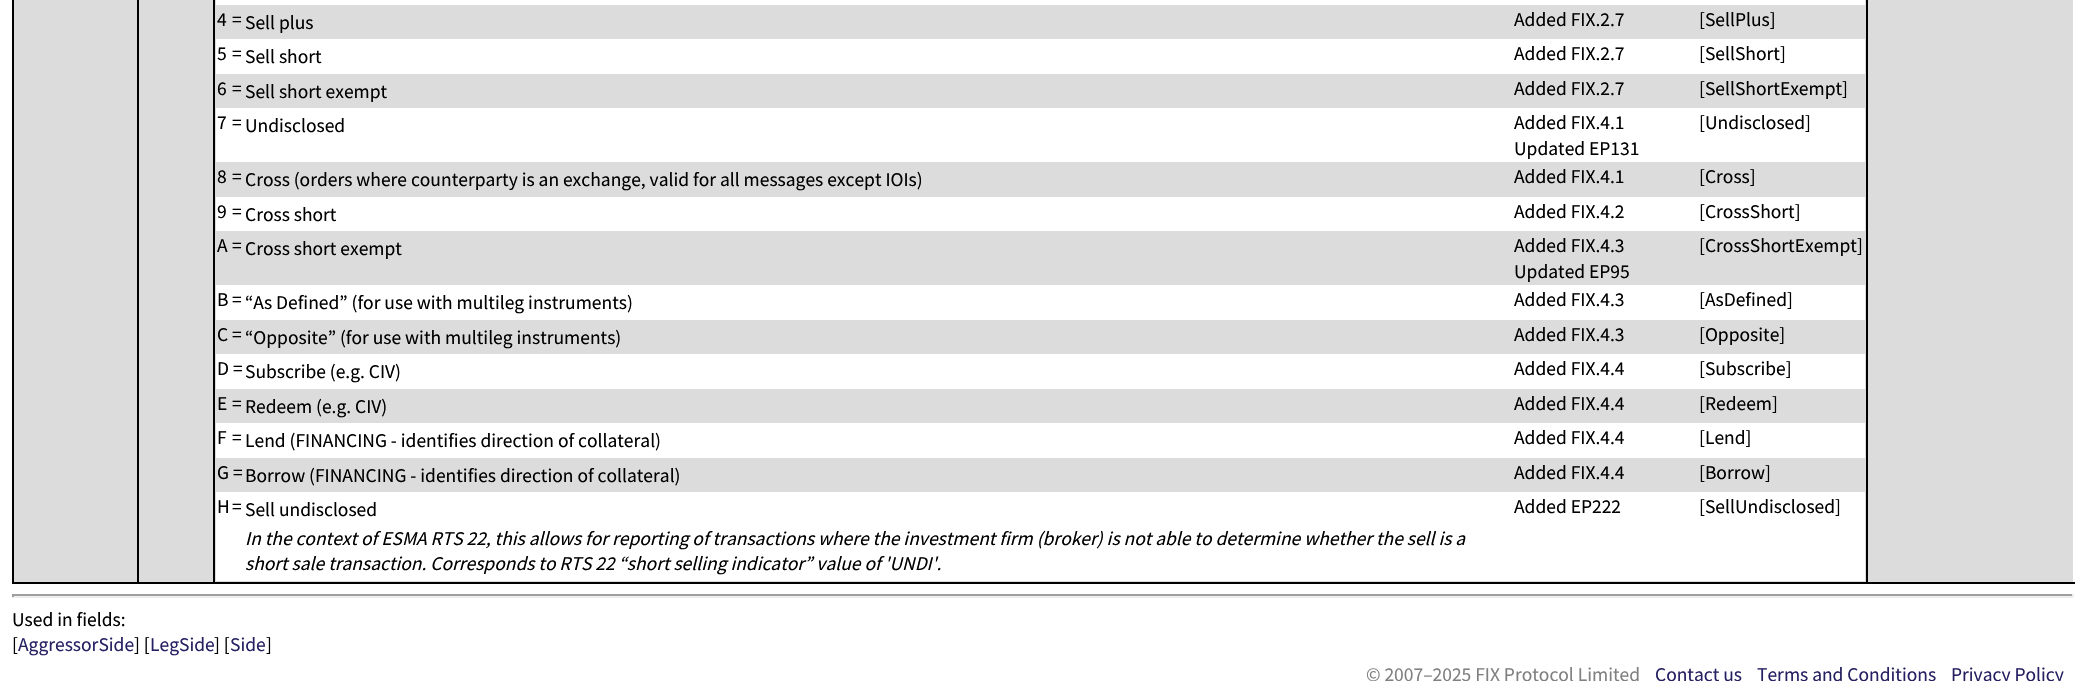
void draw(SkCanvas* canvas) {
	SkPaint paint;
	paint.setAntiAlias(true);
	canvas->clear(0xffffffff);
	paint.setColor(0xffdcdcdc);
	canvas->drawRect(SkRect::MakeXYWH(14, 0, 123, 582), paint);
	paint.setColor(0xff000000);
	canvas->drawRect(SkRect::MakeXYWH(1866, 582, 209, 2), paint);
	canvas->drawRect(SkRect::MakeXYWH(1866, 0, 2, 584), paint);
	canvas->drawRect(SkRect::MakeXYWH(213, 582, 1655, 2), paint);
	canvas->drawRect(SkRect::MakeXYWH(213, 0, 2, 584), paint);
	canvas->drawRect(SkRect::MakeXYWH(137, 582, 78, 2), paint);
	canvas->drawRect(SkRect::MakeXYWH(137, 0, 2, 584), paint);
	canvas->drawRect(SkRect::MakeXYWH(12, 582, 126, 2), paint);
	canvas->drawRect(SkRect::MakeXYWH(12, 0, 2, 584), paint);
	paint.setColor(0xffdcdcdc);
	canvas->drawRect(SkRect::MakeXYWH(139, 0, 74, 582), paint);
	canvas->drawRect(SkRect::MakeXYWH(215, 0, 1651, 582), paint);
	paint.setColor(0xffffffff);
	canvas->drawRect(SkRect::MakeXYWH(216, 0, 1649, 5), paint);
	SkFont f1(fontMgr->matchFamilyStyle("Source Sans Pro", SkFontStyle::Normal()), 19.5);
	f1.setSubpixel(true);
	paint.setColor(0xff000000);
	canvas->drawString("4", 217, 26, f1, paint);
	canvas->drawString("=", 232, 26, f1, paint);
	canvas->drawString("Sell plus", 245, 29, f1, paint);
	canvas->drawString("Added FIX.2.7", 1514, 26, f1, paint);
	canvas->drawString("[SellPlus]", 1699, 26, f1, paint);
	paint.setColor(0xffffffff);
	canvas->drawRect(SkRect::MakeXYWH(216, 39, 1649, 35), paint);
	paint.setColor(0xff000000);
	canvas->drawString("5", 217, 60, f1, paint);
	canvas->drawString("=", 232, 60, f1, paint);
	canvas->drawString("Sell short", 245, 63, f1, paint);
	canvas->drawString("Added FIX.2.7", 1514, 60, f1, paint);
	canvas->drawString("[SellShort]", 1699, 60, f1, paint);
	canvas->drawString("6", 217, 95, f1, paint);
	canvas->drawString("=", 232, 95, f1, paint);
	canvas->drawString("Sell short exempt", 245, 98, f1, paint);
	canvas->drawString("Added FIX.2.7", 1514, 95, f1, paint);
	canvas->drawString("[SellShortExempt]", 1699, 95, f1, paint);
	paint.setColor(0xffffffff);
	canvas->drawRect(SkRect::MakeXYWH(216, 108, 1649, 54), paint);
	paint.setColor(0xff000000);
	canvas->drawString("7", 217, 129, f1, paint);
	canvas->drawString("=", 232, 129, f1, paint);
	canvas->drawString("Undisclosed", 245, 132, f1, paint);
	canvas->drawString("Added FIX.4.1", 1514, 129, f1, paint);
	canvas->drawString("Updated EP131", 1514, 155, f1, paint);
	canvas->drawString("[Undisclosed]", 1699, 129, f1, paint);
	canvas->drawString("8", 217, 183, f1, paint);
	canvas->drawString("=", 232, 183, f1, paint);
	canvas->drawString("Cross (orders where counterparty is an exchange, valid for all messages except IOIs)", 245, 186, f1, paint);
	canvas->drawString("Added FIX.4.1", 1514, 183, f1, paint);
	canvas->drawString("[Cross]", 1699, 183, f1, paint);
	paint.setColor(0xffffffff);
	canvas->drawRect(SkRect::MakeXYWH(216, 197, 1649, 34), paint);
	paint.setColor(0xff000000);
	canvas->drawString("9", 217, 218, f1, paint);
	canvas->drawString("=", 232, 218, f1, paint);
	canvas->drawString("Cross short", 245, 221, f1, paint);
	canvas->drawString("Added FIX.4.2", 1514, 218, f1, paint);
	canvas->drawString("[CrossShort]", 1699, 218, f1, paint);
	canvas->drawString("A", 217, 252, f1, paint);
	canvas->drawString("=", 232, 252, f1, paint);
	canvas->drawString("Cross short exempt", 245, 255, f1, paint);
	canvas->drawString("Added FIX.4.3", 1514, 252, f1, paint);
	canvas->drawString("Updated EP95", 1514, 278, f1, paint);
	canvas->drawString("[CrossShortExempt]", 1699, 252, f1, paint);
	paint.setColor(0xffffffff);
	canvas->drawRect(SkRect::MakeXYWH(216, 285, 1649, 35), paint);
	paint.setColor(0xff000000);
	canvas->drawString("B", 217, 306, f1, paint);
	canvas->drawString("=", 232, 306, f1, paint);
	canvas->drawString("“As Defined” (for use with multileg instruments)", 245, 309, f1, paint);
	canvas->drawString("Added FIX.4.3", 1514, 306, f1, paint);
	canvas->drawString("[AsDefined]", 1699, 306, f1, paint);
	canvas->drawString("C", 217, 341, f1, paint);
	canvas->drawString("=", 232, 341, f1, paint);
	canvas->drawString("“Opposite” (for use with multileg instruments)", 245, 344, f1, paint);
	canvas->drawString("Added FIX.4.3", 1514, 341, f1, paint);
	canvas->drawString("[Opposite]", 1699, 341, f1, paint);
	paint.setColor(0xffffffff);
	canvas->drawRect(SkRect::MakeXYWH(216, 354, 1649, 35), paint);
	paint.setColor(0xff000000);
	canvas->drawString("D =", 217, 375, f1, paint);
	canvas->drawString("Subscribe (e.g. CIV)", 245, 378, f1, paint);
	canvas->drawString("Added FIX.4.4", 1514, 375, f1, paint);
	canvas->drawString("[Subscribe]", 1699, 375, f1, paint);
	canvas->drawString("E", 217, 410, f1, paint);
	canvas->drawString("=", 232, 410, f1, paint);
	canvas->drawString("Redeem (e.g. CIV)", 245, 413, f1, paint);
	canvas->drawString("Added FIX.4.4", 1514, 410, f1, paint);
	canvas->drawString("[Redeem]", 1699, 410, f1, paint);
	paint.setColor(0xffffffff);
	canvas->drawRect(SkRect::MakeXYWH(216, 423, 1649, 35), paint);
	paint.setColor(0xff000000);
	canvas->drawString("F", 217, 444, f1, paint);
	canvas->drawString("=", 232, 444, f1, paint);
	canvas->drawString("Lend (FINANCING - identifies direction of collateral)", 245, 447, f1, paint);
	canvas->drawString("Added FIX.4.4", 1514, 444, f1, paint);
	canvas->drawString("[Lend]", 1699, 444, f1, paint);
	canvas->drawString("G =", 217, 479, f1, paint);
	canvas->drawString("Borrow (FINANCING - identifies direction of collateral)", 245, 482, f1, paint);
	canvas->drawString("Added FIX.4.4", 1514, 479, f1, paint);
	canvas->drawString("[Borrow]", 1699, 479, f1, paint);
	paint.setColor(0xffffffff);
	canvas->drawRect(SkRect::MakeXYWH(216, 492, 1649, 89), paint);
	paint.setColor(0xff000000);
	canvas->drawString("H", 217, 513, f1, paint);
	canvas->drawString("=", 232, 513, f1, paint);
	canvas->drawString("Sell undisclosed", 245, 516, f1, paint);
	SkFont f2(fontMgr->matchFamilyStyle("Source Sans Pro", SkFontStyle::Italic()), 19.5);
	f2.setSubpixel(true);
	canvas->drawString("In the context of ESMA RTS 22, this allows for reporting of transactions where the investment firm (broker) is not able to determine whether the sell is a", 245, 545, f2, paint);
	canvas->drawString("short sale transaction. Corresponds to RTS 22 “short selling indicator” value of 'UNDI'.", 245, 570, f2, paint);
	canvas->drawString("Added EP222", 1514, 513, f1, paint);
	canvas->drawString("[SellUndisclosed]", 1699, 513, f1, paint);
	paint.setColor(0xffdcdcdc);
	canvas->drawRect(SkRect::MakeXYWH(1868, 0, 205, 582), paint);
	paint.setColor(0xff9f9f9f);
	canvas->drawRect(SkRect::MakeXYWH(12, 594, 2061, 2), paint);
	paint.setColor(0xffeeeeee);
	canvas->drawRect(SkRect::MakeXYWH(2072, 594, 2, 3), paint);
	canvas->drawRect(SkRect::MakeXYWH(12, 596, 2061, 2), paint);
	paint.setColor(0xff9f9f9f);
	canvas->drawRect(SkRect::MakeXYWH(12, 594, 2, 3), paint);
	paint.setColor(0xff000000);
	canvas->drawString("Used in fields:", 12, 626, f1, paint);
	canvas->drawString("[", 12, 651, f1, paint);
	paint.setColor(0xff252062);
	canvas->drawString("AggressorSide", 18, 651, f1, paint);
	paint.setColor(0xff000000);
	canvas->drawString("] [", 134, 651, f1, paint);
	paint.setColor(0xff252062);
	canvas->drawString("LegSide", 150, 651, f1, paint);
	paint.setColor(0xff000000);
	canvas->drawString("] [", 214, 651, f1, paint);
	paint.setColor(0xff252062);
	canvas->drawString("Side", 230, 651, f1, paint);
	paint.setColor(0xff000000);
	canvas->drawString("]", 266, 651, f1, paint);
	paint.setColor(0xff808080);
	canvas->drawString("© 2007–2025 FIX Protocol Limited", 1366, 681, f1, paint);
	paint.setColor(0xff252062);
	canvas->drawString("Contact us", 1655, 681, f1, paint);
	canvas->drawString("Terms and Conditions", 1757, 681, f1, paint);
	canvas->drawString("Privacy Policy", 1951, 681, f1, paint);
}
